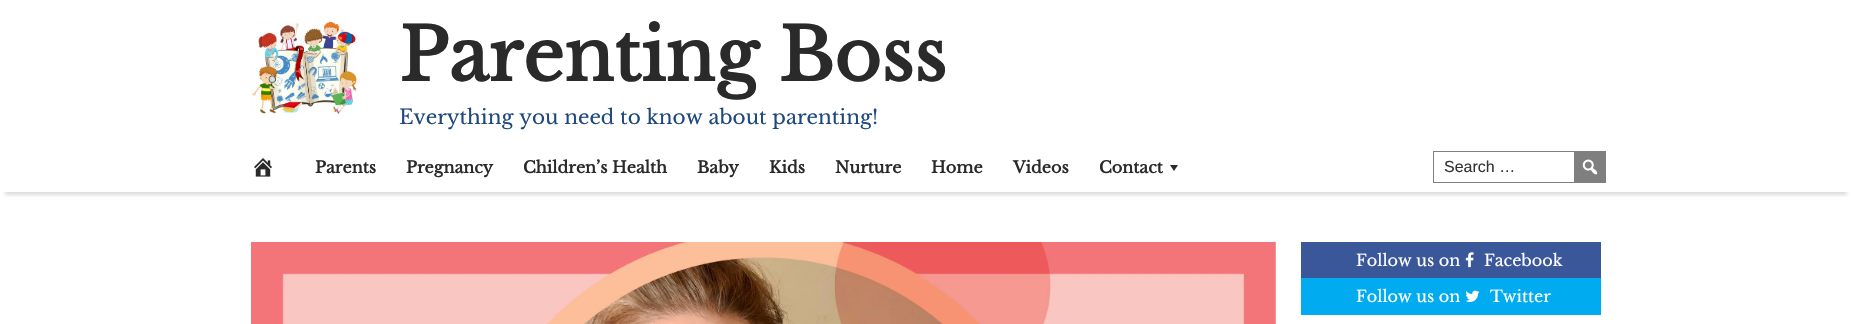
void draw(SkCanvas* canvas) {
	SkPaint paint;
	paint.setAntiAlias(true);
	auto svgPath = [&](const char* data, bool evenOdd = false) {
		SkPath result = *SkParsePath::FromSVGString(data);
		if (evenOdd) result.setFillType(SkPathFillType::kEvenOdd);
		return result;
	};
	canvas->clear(0xffffffff);
	canvas->drawImageRect(SkImages::DeferredFromEncodedData(SkData::MakeFromFileName("img1.png")), SkRect::MakeXYWH(251, 21, 106, 93), SkSamplingOptions());
	SkFont f1(fontMgr->matchFamilyStyle("Libre Baskerville", SkFontStyle::Bold()), 72);
	f1.setSubpixel(true);
	paint.setColor(0xff2a2a2a);
	canvas->drawString("Parenting Boss", 399, 81, f1, paint);
	SkFont f2(fontMgr->matchFamilyStyle("Libre Baskerville", SkFontStyle::Normal()), 20);
	f2.setSubpixel(true);
	paint.setColor(0xff1f497d);
	canvas->drawString("Everything you need to know about parenting!", 399, 124, f2, paint);
	canvas->save();
	canvas->clipRect(SkRect::MakeXYWH(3, 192, 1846, 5));
	paint.setColor(0x24000000);
	paint.setMaskFilter(SkMaskFilter::MakeBlur(kNormal_SkBlurStyle, 2));
	canvas->drawRect(SkRect::MakeXYWH(5, 155, 1842, 40), paint);
	paint.setMaskFilter(nullptr);
	canvas->restore();
	canvas->drawImageRect(SkImages::DeferredFromEncodedData(SkData::MakeFromFileName("img2.png")), SkRect::MakeXYWH(254, 158, 18, 19), SkSamplingOptions());
	SkFont f3(fontMgr->matchFamilyStyle("Libre Baskerville", SkFontStyle::Bold()), 16);
	f3.setSubpixel(true);
	paint.setColor(0xff2a2a2a);
	canvas->drawString("Parents", 315, 173, f3, paint);
	canvas->drawString("Pregnancy", 406, 173, f3, paint);
	canvas->drawString("Children’s Health", 523, 173, f3, paint);
	canvas->drawString("Baby", 697, 173, f3, paint);
	canvas->drawString("Kids", 769, 173, f3, paint);
	canvas->drawString("Nurture", 835, 173, f3, paint);
	canvas->drawString("Home", 931, 173, f3, paint);
	canvas->drawString("Videos", 1013, 173, f3, paint);
	canvas->drawString("Contact", 1099, 173, f3, paint);
	canvas->drawPath(svgPath("M1178 165L1174 171L1170 165Z"), paint);
	paint.setStroke(true);
	paint.setStrokeWidth(1);
	paint.setColor(0xff7f7f7f);
	canvas->drawRect(SkRect::MakeXYWH(1433.5, 151.5, 170, 31), paint);
	SkFont f4(fontMgr->matchFamilyStyle("Liberation Sans", SkFontStyle::Normal()), 16);
	f4.setSubpixel(true);
	paint.setStroke(false);
	paint.setColor(0xff333333);
	canvas->drawString("Search …", 1444, 172, f4, paint);
	paint.setColor(0xff7f7f7f);
	canvas->drawRect(SkRect::MakeXYWH(1574, 151, 32, 32), paint);
	canvas->drawImageRect(SkImages::DeferredFromEncodedData(SkData::MakeFromFileName("img3.png")), SkRect::MakeXYWH(1582, 159, 16, 16), SkSamplingOptions());
	canvas->drawImageRect(SkImages::DeferredFromEncodedData(SkData::MakeFromFileName("img4.png")), SkRect::MakeXYWH(251, 242, 1025, 82), SkSamplingOptions());
	paint.setColor(0xff3a579a);
	canvas->drawRect(SkRect::MakeXYWH(1301, 242, 300, 36), paint);
	SkFont f5(fontMgr->matchFamilyStyle("Libre Baskerville", SkFontStyle::Normal()), 16);
	f5.setSubpixel(true);
	paint.setColor(0xffffffff);
	canvas->drawString("Follow us on", 1356, 266, f5, paint);
	canvas->drawImageRect(SkImages::DeferredFromEncodedData(SkData::MakeFromFileName("img5.png")), SkRect::MakeXYWH(1465, 252, 9, 16), SkSamplingOptions());
	canvas->drawString("Facebook", 1484, 266, f5, paint);
	paint.setColor(0xff00abf0);
	canvas->drawRect(SkRect::MakeXYWH(1301, 278, 300, 37), paint);
	paint.setColor(0xffffffff);
	canvas->drawString("Follow us on", 1356, 302, f5, paint);
	canvas->drawImageRect(SkImages::DeferredFromEncodedData(SkData::MakeFromFileName("img6.png")), SkRect::MakeXYWH(1465, 290, 15, 12), SkSamplingOptions());
	canvas->drawString("Twitter", 1490, 302, f5, paint);
}
